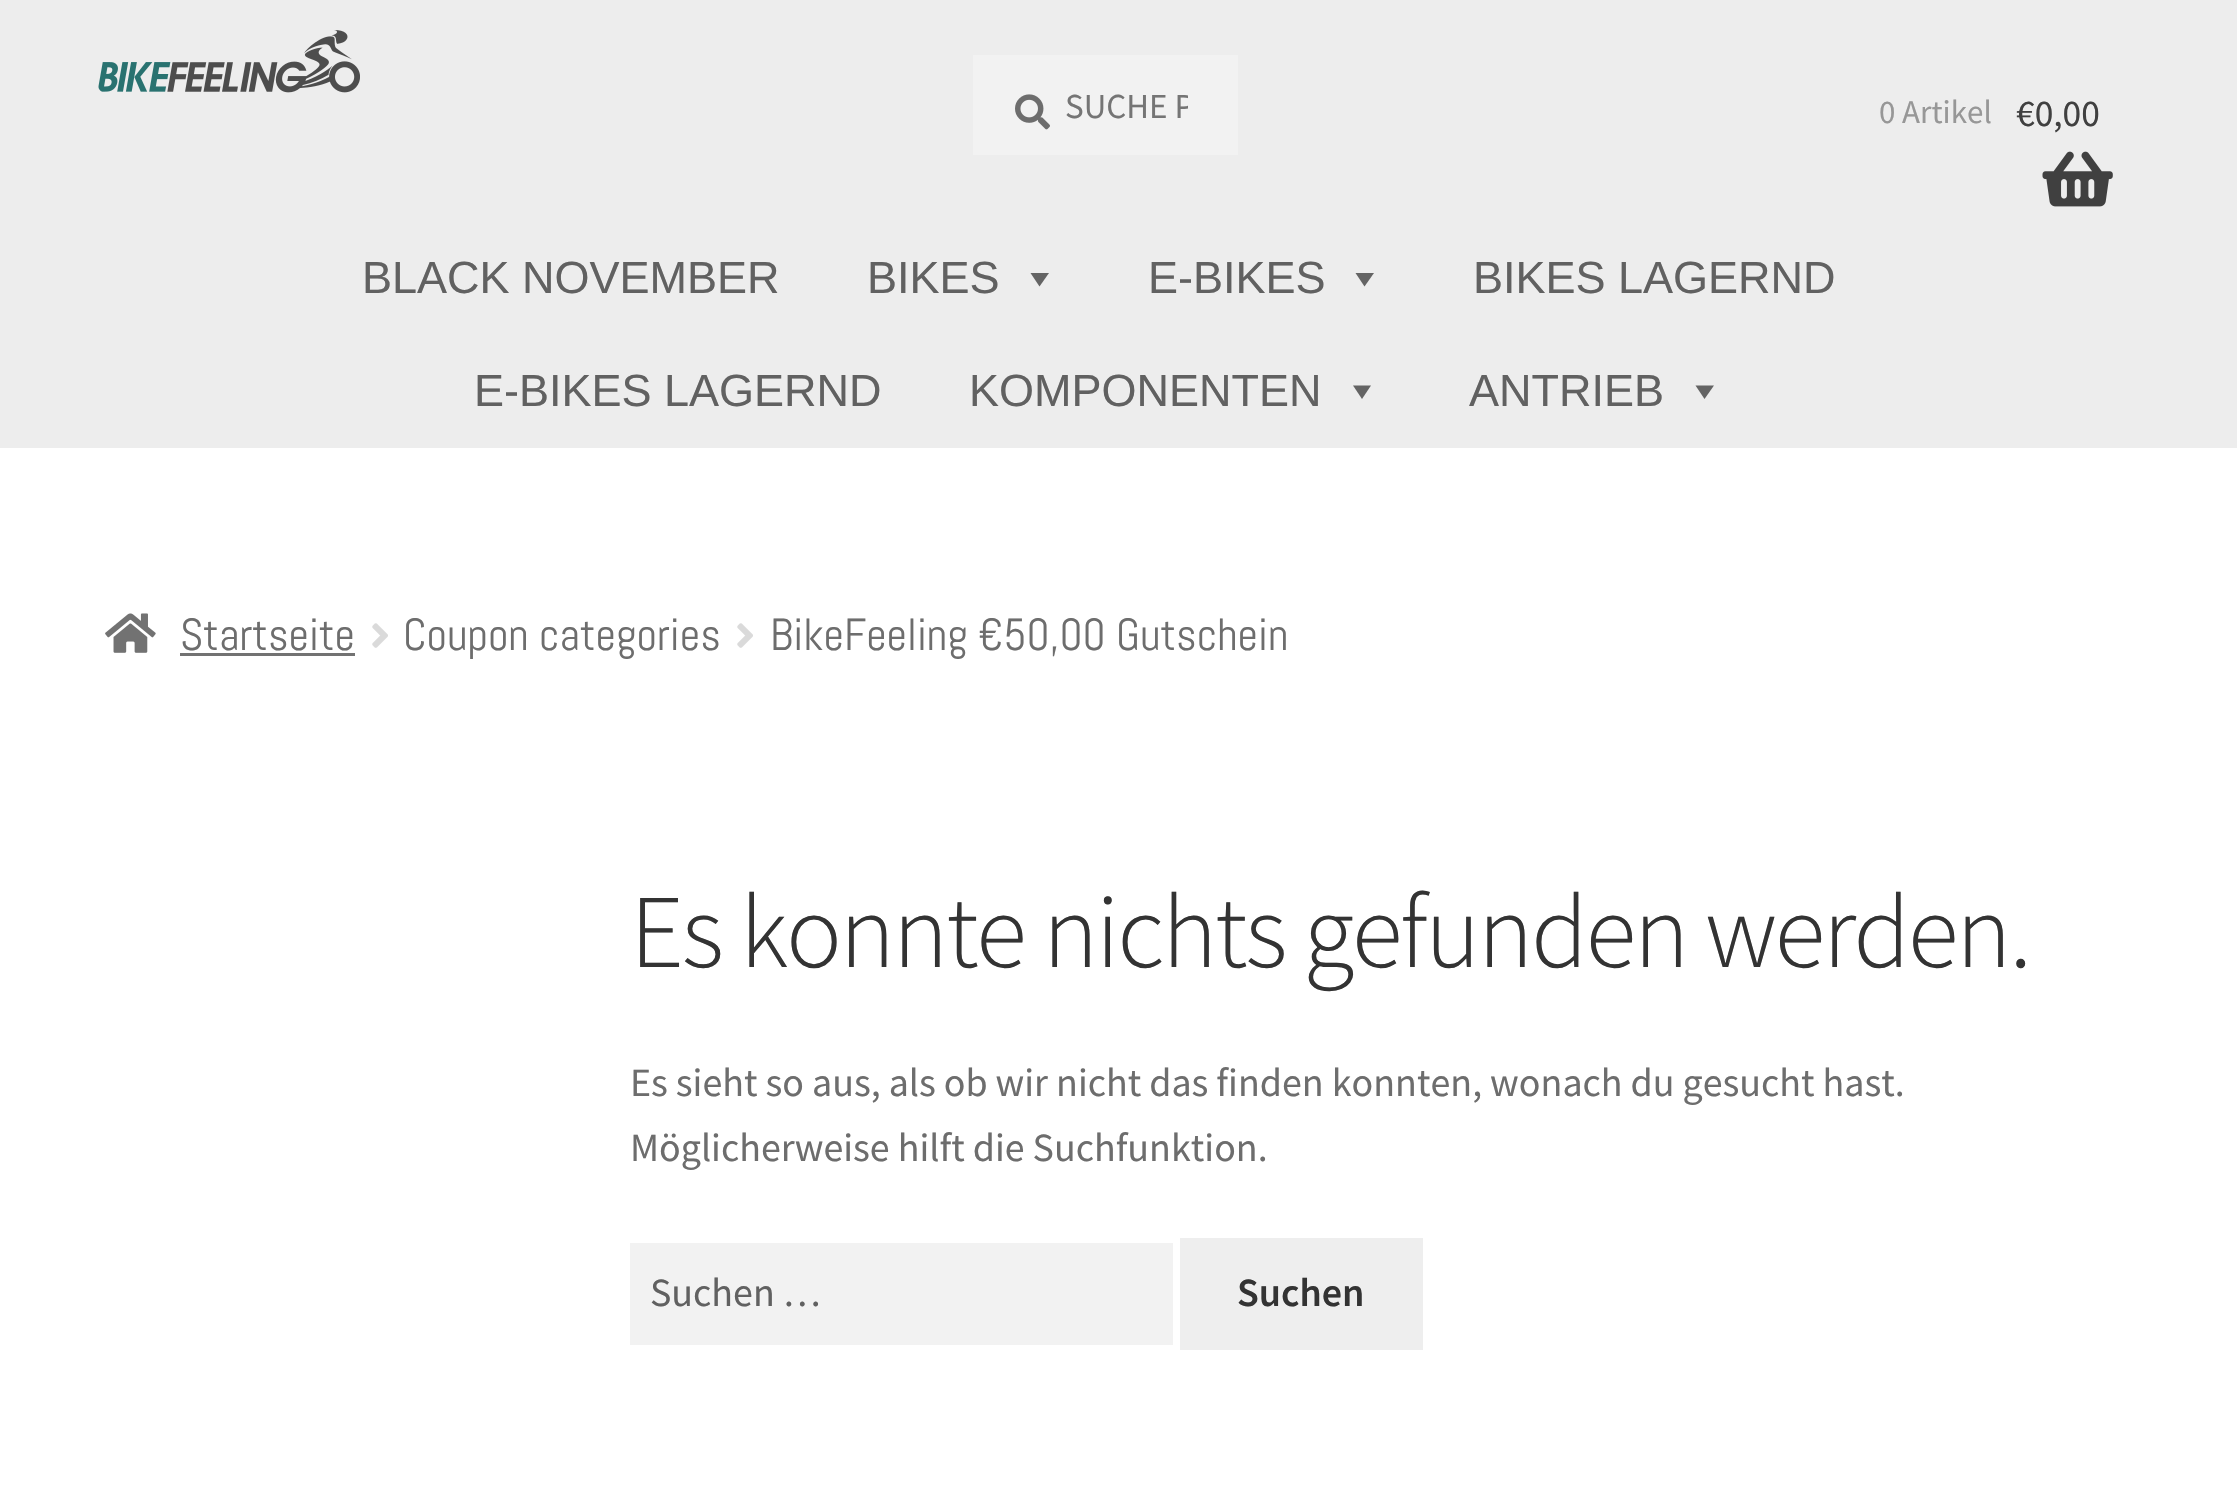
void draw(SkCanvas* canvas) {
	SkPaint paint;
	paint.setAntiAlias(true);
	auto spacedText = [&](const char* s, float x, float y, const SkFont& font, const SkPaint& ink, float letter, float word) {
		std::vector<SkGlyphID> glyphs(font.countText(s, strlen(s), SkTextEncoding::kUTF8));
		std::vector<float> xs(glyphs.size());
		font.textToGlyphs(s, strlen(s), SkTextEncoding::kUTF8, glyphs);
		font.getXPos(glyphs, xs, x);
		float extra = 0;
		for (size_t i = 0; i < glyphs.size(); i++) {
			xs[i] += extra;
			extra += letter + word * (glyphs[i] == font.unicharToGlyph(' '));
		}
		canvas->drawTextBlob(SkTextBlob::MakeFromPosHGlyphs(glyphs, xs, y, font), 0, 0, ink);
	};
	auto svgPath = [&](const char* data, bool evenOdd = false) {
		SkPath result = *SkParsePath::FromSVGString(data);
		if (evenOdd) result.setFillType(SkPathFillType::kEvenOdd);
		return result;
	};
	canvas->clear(0xffffffff);
	paint.setColor(0xffededed);
	canvas->drawRect(SkRect::MakeXYWH(0, 0, 2237, 448), paint);
	canvas->drawImageRect(SkImages::DeferredFromEncodedData(SkData::MakeFromFileName("img1.png")), SkRect::MakeXYWH(98, 30, 262, 63), SkSamplingOptions());
	paint.setColor(0xfff2f2f2);
	canvas->drawRect(SkRect::MakeXYWH(973, 55, 265, 100), paint);
	canvas->drawImageRect(SkImages::DeferredFromEncodedData(SkData::MakeFromFileName("img2.png")), SkRect::MakeXYWH(1015, 94, 35, 36), SkSamplingOptions());
	canvas->save();
	canvas->clipRect(SkRect::MakeXYWH(1065, 83, 123, 45));
	SkFont f1(fontMgr->matchFamilyStyle("Source Sans Pro", SkFontStyle::Normal()), 35);
	f1.setSubpixel(true);
	paint.setColor(0xff757575);
	canvas->drawString("SUCHE P", 1065, 118, f1, paint);
	canvas->restore();
	SkFont f2(fontMgr->matchFamilyStyle("Source Sans Pro", SkFontStyle::Normal()), 33);
	f2.setSubpixel(true);
	paint.setColor(0xff979797);
	canvas->drawString("0 Artikel", 1879, 123, f2, paint);
	SkFont f3(fontMgr->matchFamilyStyle("Source Sans Pro", SkFontStyle::Normal()), 37.5);
	f3.setSubpixel(true);
	paint.setColor(0xff404040);
	canvas->drawString("€0,00", 2016, 126, f3, paint);
	canvas->drawImageRect(SkImages::DeferredFromEncodedData(SkData::MakeFromFileName("img3.png")), SkRect::MakeXYWH(2042, 151, 71, 56), SkSamplingOptions());
	SkFont f4(fontMgr->matchFamilyStyle("Liberation Sans", SkFontStyle::Normal()), 45);
	f4.setSubpixel(true);
	paint.setColor(0xff616161);
	canvas->drawString("BLACK NOVEMBER", 362, 293, f4, paint);
	canvas->drawString("BIKES", 867, 293, f4, paint);
	paint.setColor(0xff646464);
	canvas->drawPath(svgPath("M1049 273L1039.5 286.5L1030.5 273Z"), paint);
	paint.setColor(0xff616161);
	canvas->drawString("E-BIKES", 1148, 293, f4, paint);
	paint.setColor(0xff646464);
	canvas->drawPath(svgPath("M1374 273L1364.5 286.5L1355.5 273Z"), paint);
	paint.setColor(0xff616161);
	canvas->drawString("BIKES LAGERND", 1473, 293, f4, paint);
	canvas->drawString("E-BIKES LAGERND", 474, 406, f4, paint);
	canvas->drawString("KOMPONENTEN", 969, 406, f4, paint);
	paint.setColor(0xff646464);
	canvas->drawPath(svgPath("M1371 385.5L1362 399L1353 385.5Z"), paint);
	paint.setColor(0xff616161);
	canvas->drawString("ANTRIEB", 1469, 406, f4, paint);
	paint.setColor(0xff646464);
	canvas->drawPath(svgPath("M1714 385.5L1704.5 399L1695.5 385.5Z"), paint);
	canvas->drawImageRect(SkImages::DeferredFromEncodedData(SkData::MakeFromFileName("img4.png")), SkRect::MakeXYWH(105, 613, 51, 40), SkSamplingOptions());
	SkFont f5(fontMgr->matchFamilyStyle("Abel", SkFontStyle::Normal()), 45);
	f5.setSubpixel(true);
	paint.setColor(0xff6d6d6d);
	canvas->drawString("Startseite", 180, 650, f5, paint);
	paint.setColor(0xff727272);
	canvas->drawRect(SkRect::MakeXYWH(180, 653, 175, 3), paint);
	canvas->drawImageRect(SkImages::DeferredFromEncodedData(SkData::MakeFromFileName("img5.png")), SkRect::MakeXYWH(372, 623, 16, 25), SkSamplingOptions());
	paint.setColor(0xff6d6d6d);
	canvas->drawString("Coupon categories", 403, 650, f5, paint);
	canvas->drawImageRect(SkImages::DeferredFromEncodedData(SkData::MakeFromFileName("img5.png")), SkRect::MakeXYWH(737, 623, 16, 25), SkSamplingOptions());
	canvas->drawString("BikeFeeling €50,00 Gutschein", 770, 650, f5, paint);
	SkFont f6(fontMgr->matchFamilyStyle("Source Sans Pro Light", SkFontStyle(300, SkFontStyle::kNormal_Width, SkFontStyle::kUpright_Slant)), 104.75);
	f6.setSubpixel(true);
	paint.setColor(0xff333333);
	spacedText("Es konnte nichts gefunden werden.", 630, 967, f6, paint, -2.5, 0);
	SkFont f7(fontMgr->matchFamilyStyle("Source Sans Pro", SkFontStyle::Normal()), 40);
	f7.setSubpixel(true);
	paint.setColor(0xff6d6d6d);
	canvas->drawString("Es sieht so aus, als ob wir nicht das finden konnten, wonach du gesucht hast.", 630, 1096, f7, paint);
	canvas->drawString("Möglicherweise hilft die Suchfunktion.", 630, 1161, f7, paint);
	paint.setColor(0xfff2f2f2);
	canvas->drawRect(SkRect::MakeXYWH(630, 1243, 543, 102), paint);
	paint.setColor(0xff616161);
	canvas->drawString("Suchen …", 650, 1306, f7, paint);
	paint.setColor(0xffeeeeee);
	canvas->drawRect(SkRect::MakeXYWH(1180, 1238, 243, 112), paint);
	SkFont f8(fontMgr->matchFamilyStyle("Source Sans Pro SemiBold", SkFontStyle(600, SkFontStyle::kNormal_Width, SkFontStyle::kUpright_Slant)), 40);
	f8.setSubpixel(true);
	paint.setColor(0xff333333);
	canvas->drawString("Suchen", 1237, 1306, f8, paint);
}
